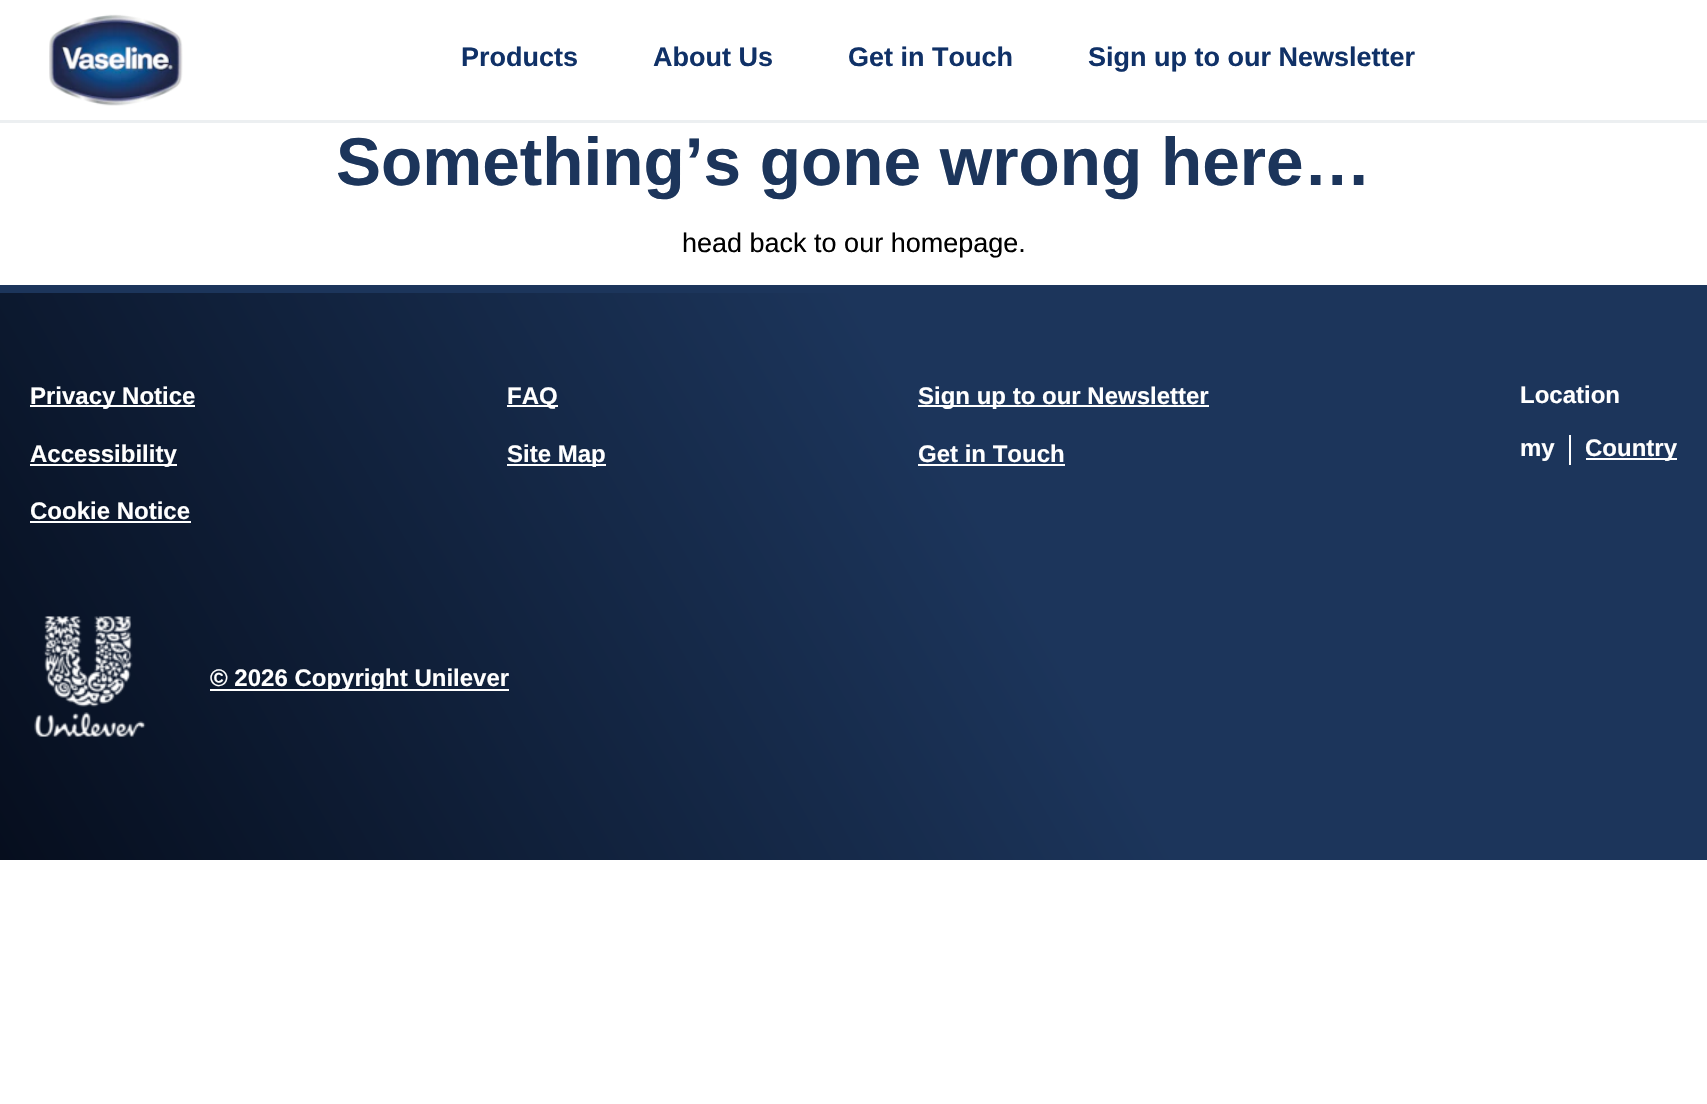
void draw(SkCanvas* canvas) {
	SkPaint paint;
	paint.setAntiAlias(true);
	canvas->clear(0xffffffff);
	paint.setColor(0xffeceff1);
	canvas->drawRect(SkRect::MakeXYWH(0, 120, 1707, 3), paint);
	canvas->drawImageRect(SkImages::DeferredFromEncodedData(SkData::MakeFromFileName("img1.png")), SkRect::MakeXYWH(49, 14, 134, 92), SkSamplingOptions());
	SkFont f1(fontMgr->matchFamilyStyle("Liberation Sans", SkFontStyle::Bold()), 27);
	f1.setSubpixel(true);
	paint.setColor(0xff103167);
	canvas->drawString("Products", 461, 66, f1, paint);
	canvas->drawString("About Us", 653, 66, f1, paint);
	canvas->drawString("Get in Touch", 848, 66, f1, paint);
	canvas->drawString("Sign up to our Newsletter", 1088, 66, f1, paint);
	SkFont f2(fontMgr->matchFamilyStyle("Liberation Sans", SkFontStyle::Bold()), 67.5);
	f2.setSubpixel(true);
	paint.setColor(0xff1c355b);
	canvas->drawString("Something’s gone wrong here…", 336, 185, f2, paint);
	SkFont f3(fontMgr->matchFamilyStyle("Liberation Sans", SkFontStyle::Normal()), 27);
	f3.setSubpixel(true);
	paint.setColor(0xff000000);
	canvas->drawString("head back to our homepage.", 682, 252, f3, paint);
	paint.setColor(0xff1c355b);
	canvas->drawRect(SkRect::MakeXYWH(0, 285, 1707, 8), paint);
	{
		const SkColor colors[] = {0xff060e1e, 0xff1c355b};
		const float stops[] = {0, 0.58};
		const SkPoint ends[] = {{91, 1016}, {1616, 136}};
		paint.setShader(SkGradientShader::MakeLinear(ends, colors, stops, 2, SkTileMode::kClamp));
		paint.setAlpha(255);
	}
	canvas->drawRect(SkRect::MakeXYWH(0, 293, 1707, 567), paint);
	paint.setShader(nullptr);
	paint.setColor(0xffffffff);
	canvas->drawRect(SkRect::MakeXYWH(30, 405, 165, 2), paint);
	SkFont f4(fontMgr->matchFamilyStyle("Liberation Sans", SkFontStyle::Bold()), 24);
	f4.setSubpixel(true);
	canvas->drawString("Privacy Notice", 30, 404, f4, paint);
	canvas->drawRect(SkRect::MakeXYWH(30, 464, 147, 2), paint);
	canvas->drawString("Accessibility", 30, 462, f4, paint);
	canvas->drawString("Cookie Notice", 30, 519, f4, paint);
	canvas->drawRect(SkRect::MakeXYWH(30, 521, 161, 2), paint);
	canvas->drawRect(SkRect::MakeXYWH(507, 405, 51, 2), paint);
	canvas->drawString("FAQ", 507, 404, f4, paint);
	canvas->drawRect(SkRect::MakeXYWH(507, 464, 99, 2), paint);
	canvas->drawString("Site Map", 507, 462, f4, paint);
	canvas->drawRect(SkRect::MakeXYWH(918, 405, 291, 2), paint);
	canvas->drawString("Sign up to our Newsletter", 918, 404, f4, paint);
	canvas->drawString("Get in Touch", 918, 462, f4, paint);
	canvas->drawRect(SkRect::MakeXYWH(918, 464, 147, 2), paint);
	canvas->drawString("Location", 1520, 403, f4, paint);
	canvas->drawString("my", 1520, 456, f4, paint);
	canvas->drawRect(SkRect::MakeXYWH(1569, 435, 2, 30), paint);
	canvas->drawRect(SkRect::MakeXYWH(1586, 458, 91, 2), paint);
	canvas->drawString("Country", 1585, 456, f4, paint);
	canvas->drawImageRect(SkImages::DeferredFromEncodedData(SkData::MakeFromFileName("img2.png")), SkRect::MakeXYWH(34, 616, 112, 121), SkSamplingOptions());
	canvas->drawRect(SkRect::MakeXYWH(210, 689, 299, 2), paint);
	canvas->drawString("© 2026 Copyright Unilever", 210, 686, f4, paint);
}
